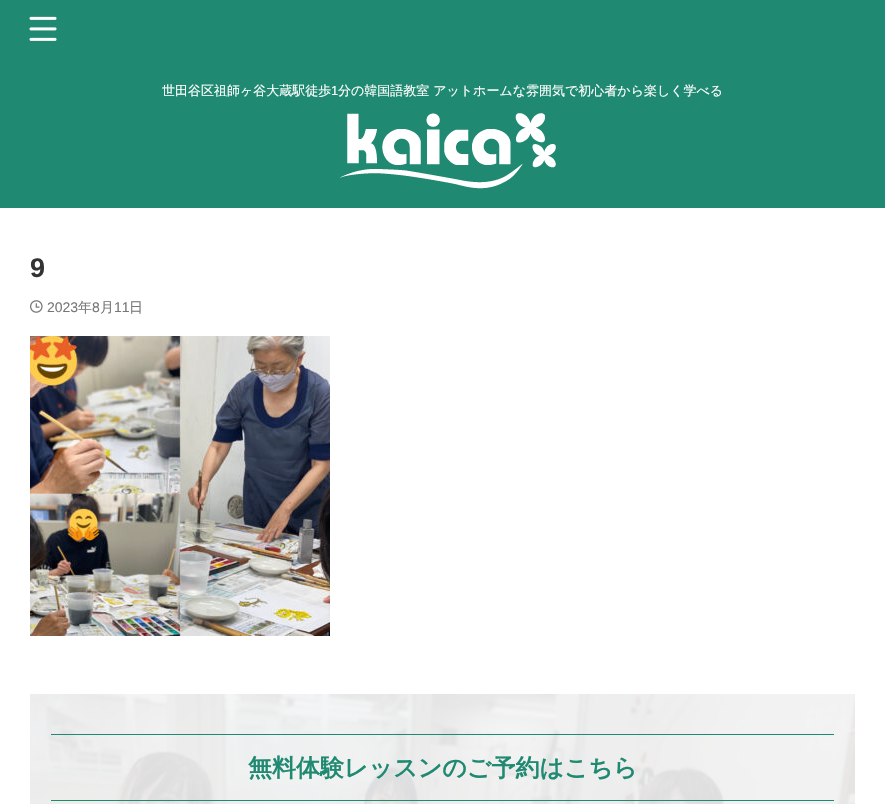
void draw(SkCanvas* canvas) {
	SkPaint paint;
	paint.setAntiAlias(true);
	canvas->clear(0xff208971);
	canvas->drawImageRect(SkImages::DeferredFromEncodedData(SkData::MakeFromFileName("img1.png")), SkRect::MakeXYWH(29, 16, 28, 25), SkSamplingOptions());
	SkFont f1(fontMgr->matchFamilyStyle("WenQuanYi Zen Hei", SkFontStyle(500, SkFontStyle::kNormal_Width, SkFontStyle::kUpright_Slant)), 13);
	f1.setSubpixel(true);
	paint.setColor(0xffffffff);
	canvas->drawString("世田谷区祖師ヶ谷大蔵駅徒歩", 162, 95, f1, paint);
	SkFont f2(fontMgr->matchFamilyStyle("Liberation Sans", SkFontStyle::Normal()), 13);
	f2.setSubpixel(true);
	canvas->drawString("1", 331, 95, f2, paint);
	canvas->drawString("分の韓国語教室 アットホームな雰囲気で初心者から楽しく学べる", 338, 95, f1, paint);
	canvas->drawImageRect(SkImages::DeferredFromEncodedData(SkData::MakeFromFileName("img2.png")), SkRect::MakeXYWH(340, 113, 216, 76), SkSamplingOptions());
	canvas->drawRect(SkRect::MakeXYWH(0, 208, 885, 596), paint);
	SkFont f3(fontMgr->matchFamilyStyle("Liberation Sans", SkFontStyle::Bold()), 27);
	f3.setSubpixel(true);
	paint.setColor(0xff333333);
	canvas->drawString("9", 30, 277, f3, paint);
	canvas->drawImageRect(SkImages::DeferredFromEncodedData(SkData::MakeFromFileName("img3.png")), SkRect::MakeXYWH(30, 300, 13, 13), SkSamplingOptions());
	SkFont f4(fontMgr->matchFamilyStyle("Liberation Sans", SkFontStyle::Normal()), 14);
	f4.setSubpixel(true);
	paint.setColor(0xff777777);
	canvas->drawString("2023", 47, 312, f4, paint);
	SkFont f5(fontMgr->matchFamilyStyle("WenQuanYi Zen Hei", SkFontStyle(500, SkFontStyle::kNormal_Width, SkFontStyle::kUpright_Slant)), 14);
	f5.setSubpixel(true);
	canvas->drawString("年", 78, 312, f5, paint);
	canvas->drawString("8", 92, 312, f4, paint);
	canvas->drawString("月", 100, 312, f5, paint);
	canvas->drawString("11", 114, 312, f4, paint);
	canvas->drawString("日", 129, 312, f5, paint);
	canvas->drawImageRect(SkImages::DeferredFromEncodedData(SkData::MakeFromFileName("img4.png")), SkRect::MakeXYWH(30, 336, 300, 300), SkSamplingOptions());
	canvas->drawImageRect(SkImages::DeferredFromEncodedData(SkData::MakeFromFileName("img5.png")), SkRect::MakeXYWH(30, 694, 825, 110), SkSamplingOptions());
	paint.setColor(0xff208971);
	canvas->drawRect(SkRect::MakeXYWH(51, 734, 783, 1), paint);
	canvas->drawRect(SkRect::MakeXYWH(51, 800, 783, 1), paint);
	SkFont f6(fontMgr->matchFamilyStyle("WenQuanYi Zen Hei", SkFontStyle::Bold()), 24);
	f6.setSubpixel(true);
	canvas->drawString("無料体験レッスンのご予約はこちら", 248, 776, f6, paint);
}
